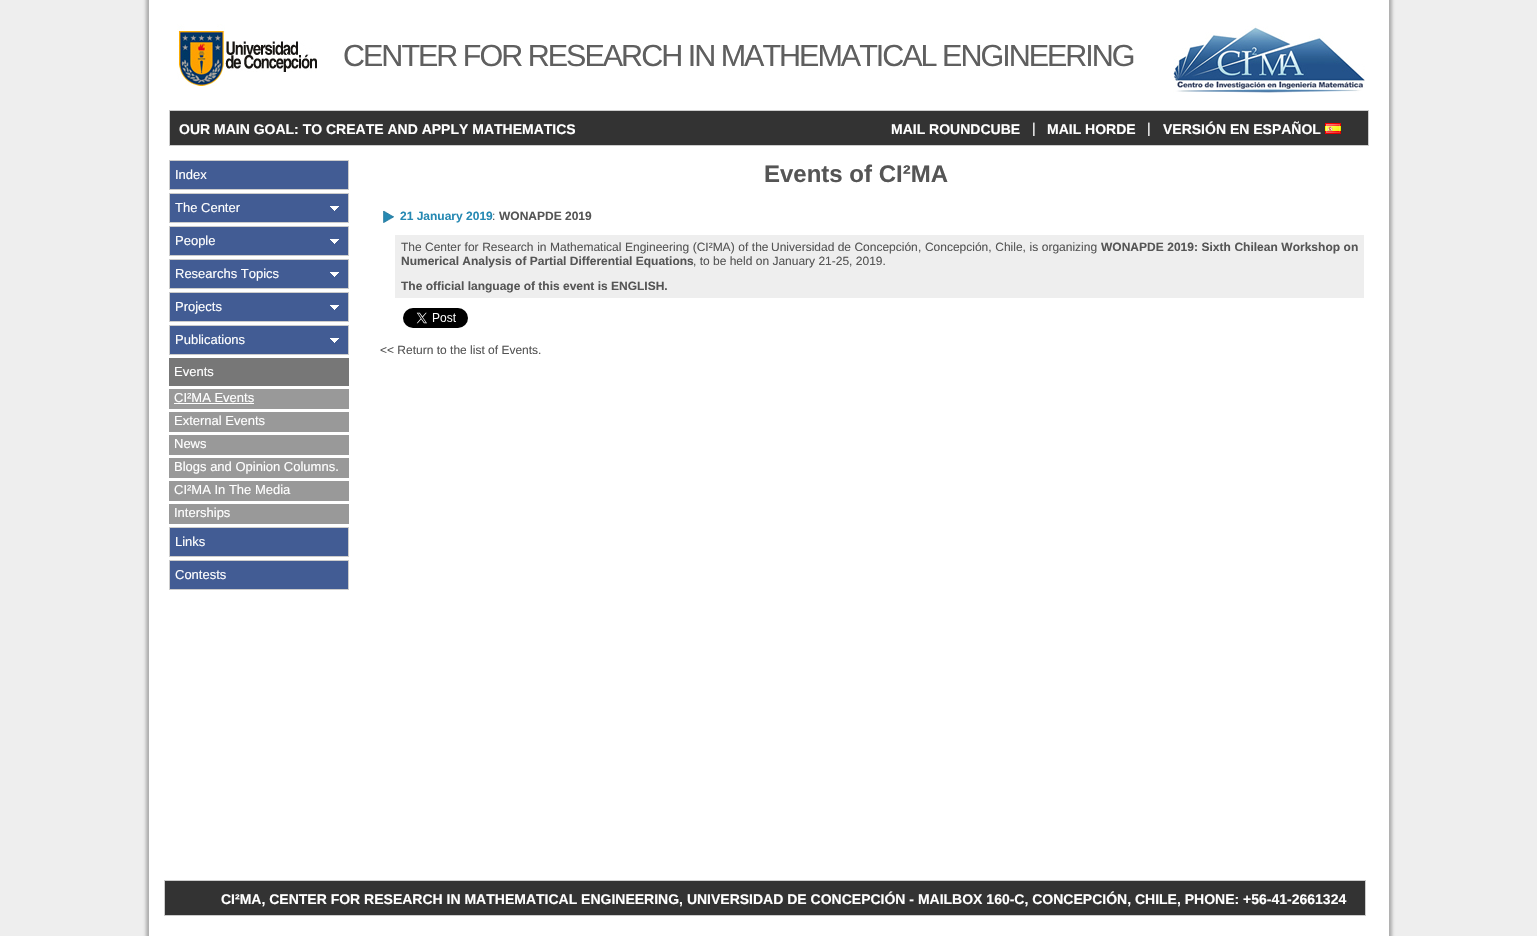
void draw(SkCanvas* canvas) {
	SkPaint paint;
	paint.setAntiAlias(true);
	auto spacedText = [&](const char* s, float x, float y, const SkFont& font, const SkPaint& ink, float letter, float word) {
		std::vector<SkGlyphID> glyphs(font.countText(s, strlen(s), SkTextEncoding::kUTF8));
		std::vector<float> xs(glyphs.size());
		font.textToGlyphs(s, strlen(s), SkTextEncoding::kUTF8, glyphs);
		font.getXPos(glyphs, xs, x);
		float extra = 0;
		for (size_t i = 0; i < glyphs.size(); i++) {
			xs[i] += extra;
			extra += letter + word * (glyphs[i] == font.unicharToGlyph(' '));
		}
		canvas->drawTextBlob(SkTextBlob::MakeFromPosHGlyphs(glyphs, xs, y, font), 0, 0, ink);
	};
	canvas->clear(0xffeeeeee);
	paint.setColor(0xffaeaeae);
	paint.setMaskFilter(SkMaskFilter::MakeBlur(kNormal_SkBlurStyle, 1.5));
	canvas->drawRect(SkRect::MakeXYWH(146, -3, 1246, 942), paint);
	paint.setMaskFilter(nullptr);
	paint.setColor(0xffffffff);
	canvas->drawRect(SkRect::MakeXYWH(149, 0, 1240, 936), paint);
	canvas->drawImageRect(SkImages::DeferredFromEncodedData(SkData::MakeFromFileName("img1.png")), SkRect::MakeXYWH(177, 24, 140, 62), SkSamplingOptions());
	SkFont f1(fontMgr->matchFamilyStyle("Liberation Sans", SkFontStyle::Normal()), 30.5);
	f1.setSubpixel(true);
	paint.setColor(0xff5f5f5f);
	spacedText("CENTER FOR RESEARCH IN MATHEMATICAL ENGINEERING", 343, 66, f1, paint, -2, 0);
	canvas->drawImageRect(SkImages::DeferredFromEncodedData(SkData::MakeFromFileName("img2.png")), SkRect::MakeXYWH(1173, 26, 192, 67), SkSamplingOptions());
	paint.setColor(0xff333333);
	canvas->drawRect(SkRect::MakeXYWH(169.5, 110.5, 1199, 35), paint);
	paint.setStroke(true);
	paint.setStrokeWidth(1);
	paint.setColor(0xffcccccc);
	canvas->drawRect(SkRect::MakeXYWH(169.5, 110.5, 1199, 35), paint);
	SkFont f2(fontMgr->matchFamilyStyle("Liberation Sans", SkFontStyle::Bold()), 14);
	f2.setSubpixel(true);
	paint.setStroke(false);
	paint.setColor(0xffffffff);
	canvas->drawString("OUR MAIN GOAL: TO CREATE AND APPLY MATHEMATICS", 179, 134, f2, paint);
	canvas->drawString("MAIL ROUNDCUBE", 891, 134, f2, paint);
	SkFont f3(fontMgr->matchFamilyStyle("Liberation Sans", SkFontStyle::Normal()), 14);
	f3.setSubpixel(true);
	canvas->drawString("|", 1032, 133, f3, paint);
	canvas->drawString("MAIL HORDE", 1047, 134, f2, paint);
	canvas->drawString("|", 1147, 133, f3, paint);
	canvas->drawString("VERSIÓN EN ESPAÑOL", 1163, 134, f2, paint);
	canvas->drawImageRect(SkImages::DeferredFromEncodedData(SkData::MakeFromFileName("img3.png")), SkRect::MakeXYWH(1325, 123, 16, 11), SkSamplingOptions());
	SkFont f4(fontMgr->matchFamilyStyle("Liberation Sans", SkFontStyle::Bold()), 24);
	f4.setSubpixel(true);
	paint.setColor(0xff555555);
	canvas->drawString("Events of CI²MA", 764, 182, f4, paint);
	canvas->drawImageRect(SkImages::DeferredFromEncodedData(SkData::MakeFromFileName("img4.png")), SkRect::MakeXYWH(383, 210, 11, 13), SkSamplingOptions());
	SkFont f5(fontMgr->matchFamilyStyle("Liberation Sans", SkFontStyle::Bold()), 12);
	f5.setSubpixel(true);
	paint.setColor(0xff2689b3);
	canvas->drawString("21 January 2019", 400, 220, f5, paint);
	SkFont f6(fontMgr->matchFamilyStyle("Liberation Sans", SkFontStyle::Normal()), 12);
	f6.setSubpixel(true);
	paint.setColor(0xff555555);
	canvas->drawString(":", 492, 220, f6, paint);
	canvas->drawString("WONAPDE 2019", 499, 220, f5, paint);
	paint.setColor(0xffeeeeee);
	canvas->drawRect(SkRect::MakeXYWH(395, 235, 969, 63), paint);
	paint.setColor(0xff555555);
	canvas->drawString("The", 401, 251, f6, paint);
	spacedText("Center for Research in Mathematical Engineering (CI²MA) of the", 425, 251, f6, paint, 0, 0.25);
	canvas->drawString("Universidad de Concepción", 771, 251, f6, paint);
	spacedText(", Concepción, Chile, is organizing", 918, 251, f6, paint, 0, 0.25);
	spacedText("WONAPDE 2019: Sixth Chilean Workshop on", 1101, 251, f5, paint, 0, 0.25);
	canvas->drawString("Numerical Analysis of Partial Differential Equations", 401, 265, f5, paint);
	canvas->drawString(", to be held on January 21-25, 2019.", 693, 265, f6, paint);
	canvas->drawString("The official language of this event is ENGLISH.", 401, 290, f5, paint);
	canvas->drawImageRect(SkImages::DeferredFromEncodedData(SkData::MakeFromFileName("img5.png")), SkRect::MakeXYWH(403, 308, 65, 20), SkSamplingOptions());
	canvas->drawString("<< Return to the list of Events.", 380, 354, f6, paint);
	paint.setColor(0xff333333);
	canvas->drawRect(SkRect::MakeXYWH(164.5, 880.5, 1201, 35), paint);
	paint.setStroke(true);
	paint.setColor(0xffcccccc);
	canvas->drawRect(SkRect::MakeXYWH(164.5, 880.5, 1201, 35), paint);
	paint.setStroke(false);
	paint.setColor(0xffffffff);
	canvas->drawString("CI²MA, CENTER FOR RESEARCH IN MATHEMATICAL ENGINEERING, UNIVERSIDAD DE CONCEPCIÓN - MAILBOX 160-C, CONCEPCIÓN, CHILE, PHONE: +56-41-2661324", 221, 904, f2, paint);
	paint.setColor(0xff425c94);
	canvas->drawRect(SkRect::MakeXYWH(169.5, 160.5, 179, 29), paint);
	paint.setStroke(true);
	paint.setColor(0xffcccccc);
	canvas->drawRect(SkRect::MakeXYWH(169.5, 160.5, 179, 29), paint);
	SkFont f7(fontMgr->matchFamilyStyle("Liberation Sans", SkFontStyle::Normal()), 13);
	f7.setSubpixel(true);
	paint.setStroke(false);
	paint.setColor(0xffffffff);
	canvas->drawString("Index", 175, 179, f7, paint);
	paint.setColor(0xff425c94);
	canvas->drawRect(SkRect::MakeXYWH(170, 194, 178, 28), paint);
	canvas->drawImageRect(SkImages::DeferredFromEncodedData(SkData::MakeFromFileName("img6.png")), SkRect::MakeXYWH(330, 206, 9, 5), SkSamplingOptions());
	paint.setStroke(true);
	paint.setColor(0xffcccccc);
	canvas->drawRect(SkRect::MakeXYWH(169.5, 193.5, 179, 29), paint);
	paint.setStroke(false);
	paint.setColor(0xffffffff);
	canvas->drawString("The Center", 175, 212, f7, paint);
	paint.setColor(0xff425c94);
	canvas->drawRect(SkRect::MakeXYWH(170, 227, 178, 28), paint);
	canvas->drawImageRect(SkImages::DeferredFromEncodedData(SkData::MakeFromFileName("img6.png")), SkRect::MakeXYWH(330, 239, 9, 5), SkSamplingOptions());
	paint.setStroke(true);
	paint.setColor(0xffcccccc);
	canvas->drawRect(SkRect::MakeXYWH(169.5, 226.5, 179, 29), paint);
	paint.setStroke(false);
	paint.setColor(0xffffffff);
	canvas->drawString("People", 175, 245, f7, paint);
	paint.setColor(0xff425c94);
	canvas->drawRect(SkRect::MakeXYWH(170, 260, 178, 28), paint);
	canvas->drawImageRect(SkImages::DeferredFromEncodedData(SkData::MakeFromFileName("img6.png")), SkRect::MakeXYWH(330, 272, 9, 5), SkSamplingOptions());
	paint.setStroke(true);
	paint.setColor(0xffcccccc);
	canvas->drawRect(SkRect::MakeXYWH(169.5, 259.5, 179, 29), paint);
	paint.setStroke(false);
	paint.setColor(0xffffffff);
	canvas->drawString("Researchs Topics", 175, 278, f7, paint);
	paint.setColor(0xff425c94);
	canvas->drawRect(SkRect::MakeXYWH(170, 293, 178, 28), paint);
	canvas->drawImageRect(SkImages::DeferredFromEncodedData(SkData::MakeFromFileName("img6.png")), SkRect::MakeXYWH(330, 305, 9, 5), SkSamplingOptions());
	paint.setStroke(true);
	paint.setColor(0xffcccccc);
	canvas->drawRect(SkRect::MakeXYWH(169.5, 292.5, 179, 29), paint);
	paint.setStroke(false);
	paint.setColor(0xffffffff);
	canvas->drawString("Projects", 175, 311, f7, paint);
	paint.setColor(0xff425c94);
	canvas->drawRect(SkRect::MakeXYWH(170, 326, 178, 28), paint);
	canvas->drawImageRect(SkImages::DeferredFromEncodedData(SkData::MakeFromFileName("img6.png")), SkRect::MakeXYWH(330, 338, 9, 5), SkSamplingOptions());
	paint.setStroke(true);
	paint.setColor(0xffcccccc);
	canvas->drawRect(SkRect::MakeXYWH(169.5, 325.5, 179, 29), paint);
	paint.setStroke(false);
	paint.setColor(0xffffffff);
	canvas->drawString("Publications", 175, 344, f7, paint);
	paint.setColor(0xff777777);
	canvas->drawRect(SkRect::MakeXYWH(169, 358, 180, 28), paint);
	paint.setColor(0xffffffff);
	canvas->drawString("Events", 174, 376, f7, paint);
	paint.setColor(0xff999999);
	canvas->drawRect(SkRect::MakeXYWH(169, 389, 180, 20), paint);
	paint.setColor(0xffffffff);
	canvas->drawString("CI²MA Events", 174, 402, f7, paint);
	canvas->drawRect(SkRect::MakeXYWH(174, 403, 80, 1), paint);
	paint.setColor(0xff999999);
	canvas->drawRect(SkRect::MakeXYWH(169, 412, 180, 20), paint);
	paint.setColor(0xffffffff);
	canvas->drawString("External Events", 174, 425, f7, paint);
	paint.setColor(0xff999999);
	canvas->drawRect(SkRect::MakeXYWH(169, 435, 180, 20), paint);
	paint.setColor(0xffffffff);
	canvas->drawString("News", 174, 448, f7, paint);
	paint.setColor(0xff999999);
	canvas->drawRect(SkRect::MakeXYWH(169, 458, 180, 20), paint);
	paint.setColor(0xffffffff);
	canvas->drawString("Blogs and Opinion Columns.", 174, 471, f7, paint);
	paint.setColor(0xff999999);
	canvas->drawRect(SkRect::MakeXYWH(169, 481, 180, 20), paint);
	paint.setColor(0xffffffff);
	canvas->drawString("CI²MA In The Media", 174, 494, f7, paint);
	paint.setColor(0xff999999);
	canvas->drawRect(SkRect::MakeXYWH(169, 504, 180, 20), paint);
	paint.setColor(0xffffffff);
	canvas->drawString("Interships", 174, 517, f7, paint);
	paint.setColor(0xff425c94);
	canvas->drawRect(SkRect::MakeXYWH(169.5, 527.5, 179, 29), paint);
	paint.setStroke(true);
	paint.setColor(0xffcccccc);
	canvas->drawRect(SkRect::MakeXYWH(169.5, 527.5, 179, 29), paint);
	paint.setStroke(false);
	paint.setColor(0xffffffff);
	canvas->drawString("Links", 175, 546, f7, paint);
	paint.setColor(0xff425c94);
	canvas->drawRect(SkRect::MakeXYWH(169.5, 560.5, 179, 29), paint);
	paint.setStroke(true);
	paint.setColor(0xffcccccc);
	canvas->drawRect(SkRect::MakeXYWH(169.5, 560.5, 179, 29), paint);
	paint.setStroke(false);
	paint.setColor(0xffffffff);
	canvas->drawString("Contests", 175, 579, f7, paint);
}
